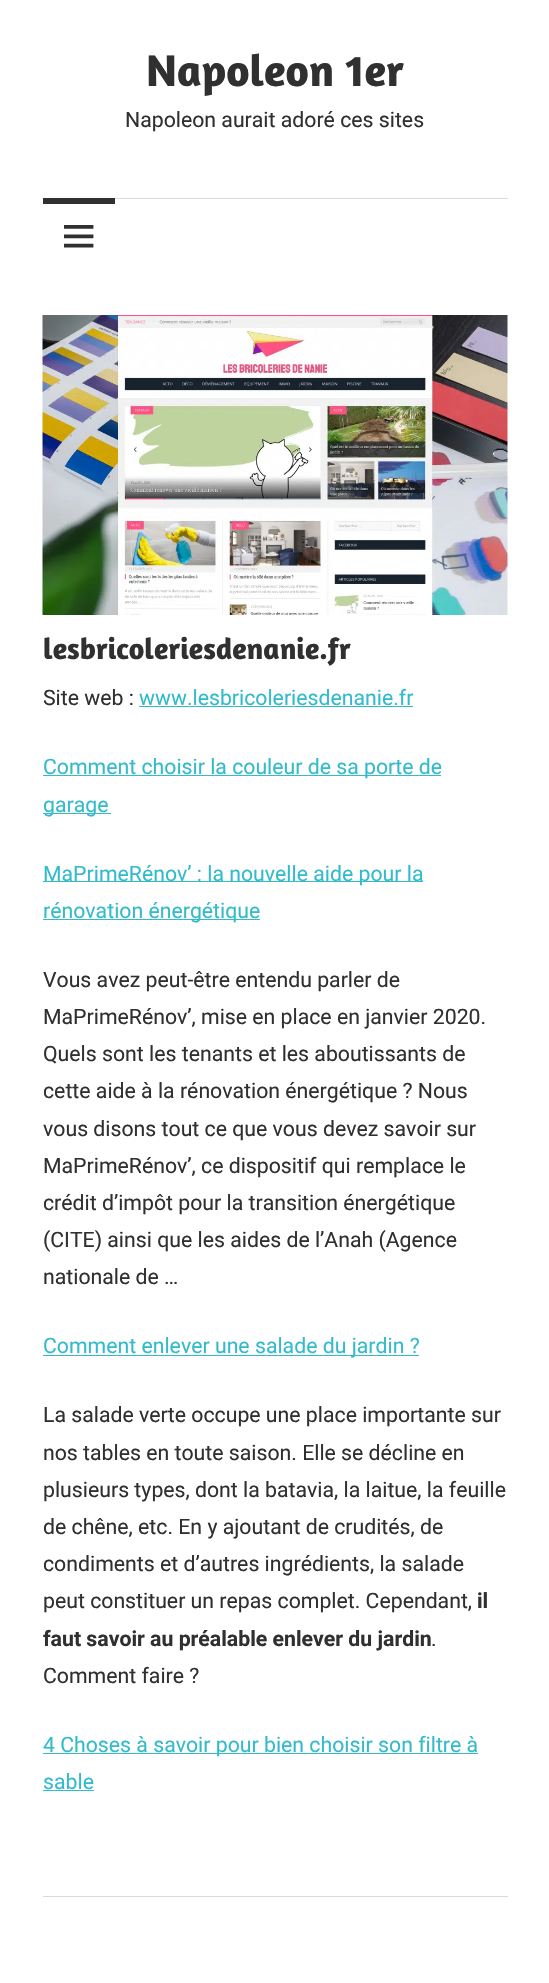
void draw(SkCanvas* canvas) {
	SkPaint paint;
	paint.setAntiAlias(true);
	canvas->clear(0xffffffff);
	SkFont f1(fontMgr->matchFamilyStyle("Amaranth", SkFontStyle::Bold()), 45);
	f1.setSubpixel(true);
	paint.setColor(0xff303030);
	canvas->drawString("Napoleon 1er", 146, 86, f1, paint);
	SkFont f2(fontMgr->matchFamilyStyle("Roboto", SkFontStyle::Normal()), 21.25);
	f2.setSubpixel(true);
	canvas->drawString("Napoleon aurait adoré ces sites", 125, 127, f2, paint);
	paint.setColor(0xffd9d9d9);
	canvas->drawRect(SkRect::MakeXYWH(115, 198, 393, 1), paint);
	paint.setColor(0xff303030);
	canvas->drawRect(SkRect::MakeXYWH(43, 198, 72, 6), paint);
	canvas->drawImageRect(SkImages::DeferredFromEncodedData(SkData::MakeFromFileName("img1.png")), SkRect::MakeXYWH(64, 225, 30, 23), SkSamplingOptions());
	canvas->drawImageRect(SkImages::DeferredFromEncodedData(SkData::MakeFromFileName("img2.png")), SkRect::MakeXYWH(42, 315, 466, 300), SkSamplingOptions());
	SkFont f3(fontMgr->matchFamilyStyle("Amaranth", SkFontStyle::Bold()), 30);
	f3.setSubpixel(true);
	canvas->drawString("lesbricoleriesdenanie.fr", 43, 659, f3, paint);
	canvas->drawString("Site web :", 43, 705, f2, paint);
	paint.setColor(0xff33bbcc);
	canvas->drawString("www.lesbricoleriesdenanie.fr", 139, 705, f2, paint);
	canvas->drawRect(SkRect::MakeXYWH(139, 706, 274, 1), paint);
	canvas->drawRect(SkRect::MakeXYWH(43, 775, 398, 1), paint);
	canvas->drawString("Comment choisir la couleur de sa porte de", 43, 774, f2, paint);
	canvas->drawRect(SkRect::MakeXYWH(43, 813, 68, 1), paint);
	canvas->drawString("garage", 43, 812, f2, paint);
	canvas->drawRect(SkRect::MakeXYWH(43, 881, 380, 1), paint);
	canvas->drawString("MaPrimeRénov’ : la nouvelle aide pour la", 43, 881, f2, paint);
	canvas->drawRect(SkRect::MakeXYWH(43, 919, 217, 1), paint);
	canvas->drawString("rénovation énergétique", 43, 918, f2, paint);
	paint.setColor(0xff303030);
	canvas->drawString("Vous avez peut-être entendu parler de", 43, 987, f2, paint);
	canvas->drawString("MaPrimeRénov’, mise en place en janvier 2020.", 43, 1024, f2, paint);
	canvas->drawString("Quels sont les tenants et les aboutissants de", 43, 1061, f2, paint);
	canvas->drawString("cette aide à la rénovation énergétique ? Nous", 43, 1098, f2, paint);
	canvas->drawString("vous disons tout ce que vous devez savoir sur", 43, 1136, f2, paint);
	canvas->drawString("MaPrimeRénov’, ce dispositif qui remplace le", 43, 1173, f2, paint);
	canvas->drawString("crédit d’impôt pour la transition énergétique", 43, 1210, f2, paint);
	canvas->drawString("(CITE) ainsi que les aides de l’Anah (Agence", 43, 1247, f2, paint);
	canvas->drawString("nationale de …", 43, 1284, f2, paint);
	paint.setColor(0xff33bbcc);
	canvas->drawRect(SkRect::MakeXYWH(43, 1355, 376, 1), paint);
	canvas->drawString("Comment enlever une salade du jardin ?", 43, 1353, f2, paint);
	paint.setColor(0xff303030);
	canvas->drawString("La salade verte occupe une place importante sur", 43, 1422, f2, paint);
	canvas->drawString("nos tables en toute saison. Elle se décline en", 43, 1460, f2, paint);
	canvas->drawString("plusieurs types, dont la batavia, la laitue, la feuille", 43, 1497, f2, paint);
	canvas->drawString("de chêne, etc. En y ajoutant de crudités, de", 43, 1534, f2, paint);
	canvas->drawString("condiments et d’autres ingrédients, la salade", 43, 1571, f2, paint);
	canvas->drawString("peut constituer un repas complet. Cependant,", 43, 1608, f2, paint);
	SkFont f4(fontMgr->matchFamilyStyle("Roboto", SkFontStyle::Bold()), 21.25);
	f4.setSubpixel(true);
	canvas->drawString("il", 477, 1608, f4, paint);
	canvas->drawString("faut savoir au préalable enlever du jardin", 43, 1646, f4, paint);
	canvas->drawString(".", 431, 1646, f2, paint);
	canvas->drawString("Comment faire ?", 43, 1683, f2, paint);
	paint.setColor(0xff33bbcc);
	canvas->drawRect(SkRect::MakeXYWH(43, 1753, 435, 1), paint);
	canvas->drawString("4 Choses à savoir pour bien choisir son filtre à", 43, 1752, f2, paint);
	canvas->drawString("sable", 43, 1789, f2, paint);
	canvas->drawRect(SkRect::MakeXYWH(43, 1790, 51, 1), paint);
	paint.setColor(0xffd9d9d9);
	canvas->drawRect(SkRect::MakeXYWH(43, 1896, 465, 1), paint);
}
